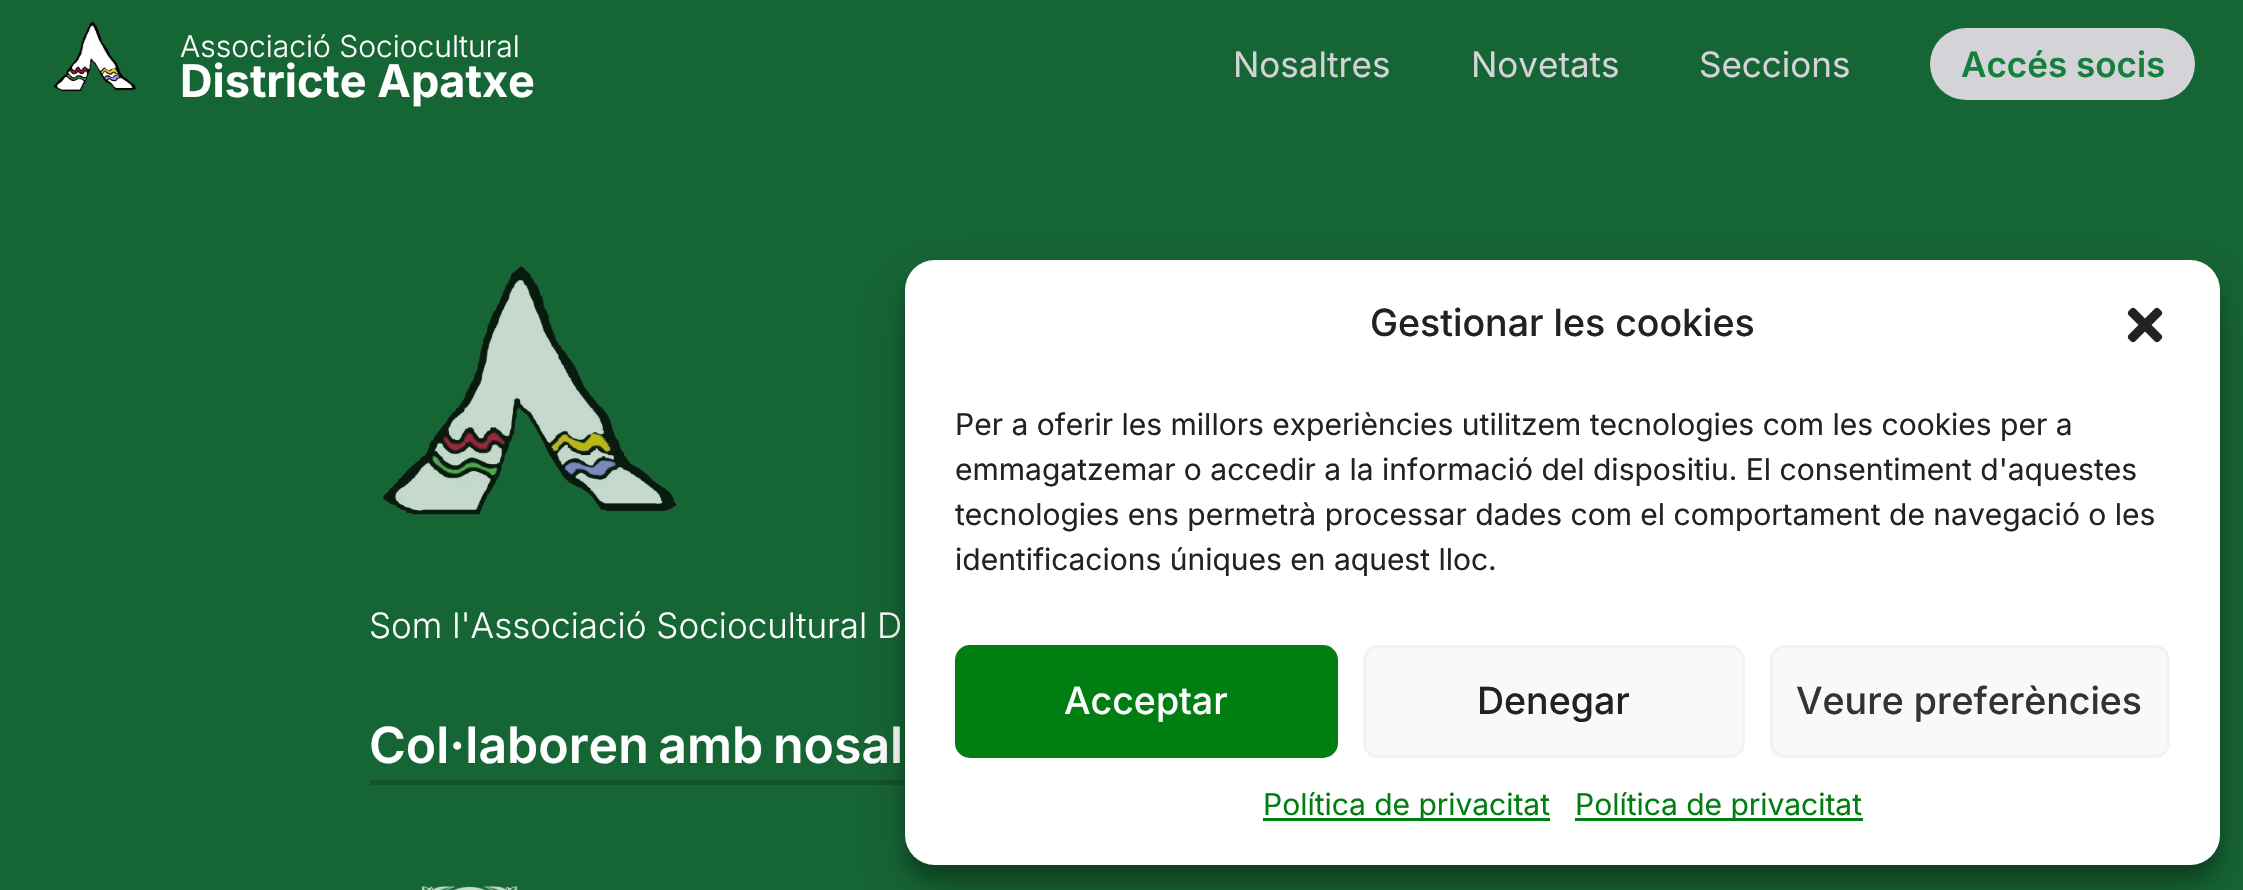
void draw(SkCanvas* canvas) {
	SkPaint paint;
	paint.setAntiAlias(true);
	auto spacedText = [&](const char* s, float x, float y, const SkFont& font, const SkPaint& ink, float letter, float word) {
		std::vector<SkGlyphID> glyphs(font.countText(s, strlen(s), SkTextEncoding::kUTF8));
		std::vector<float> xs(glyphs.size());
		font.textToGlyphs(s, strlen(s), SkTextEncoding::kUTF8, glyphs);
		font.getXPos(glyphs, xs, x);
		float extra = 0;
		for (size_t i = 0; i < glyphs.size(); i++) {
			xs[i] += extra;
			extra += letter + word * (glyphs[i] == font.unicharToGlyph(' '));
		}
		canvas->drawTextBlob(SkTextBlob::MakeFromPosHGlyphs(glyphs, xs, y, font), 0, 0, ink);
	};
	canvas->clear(0xff166534);
	canvas->drawImageRect(SkImages::DeferredFromEncodedData(SkData::MakeFromFileName("img1.png")), SkRect::MakeXYWH(53, 21, 84, 71), SkSamplingOptions());
	SkFont f1(fontMgr->matchFamilyStyle("Inter", SkFontStyle(300, SkFontStyle::kNormal_Width, SkFontStyle::kUpright_Slant)), 30);
	f1.setSubpixel(true);
	paint.setColor(0xffffffff);
	canvas->drawString("Associació Sociocultural", 180, 57, f1, paint);
	SkFont f2(fontMgr->matchFamilyStyle("Inter", SkFontStyle::Bold()), 45);
	f2.setSubpixel(true);
	canvas->drawString("Districte Apatxe", 180, 97, f2, paint);
	SkFont f3(fontMgr->matchFamilyStyle("Inter", SkFontStyle::Normal()), 35);
	f3.setSubpixel(true);
	paint.setColor(0xffd4d4d8);
	canvas->drawString("Nosaltres", 1233, 77, f3, paint);
	canvas->drawString("Novetats", 1471, 77, f3, paint);
	canvas->drawString("Seccions", 1699, 77, f3, paint);
	canvas->drawRoundRect(SkRect::MakeXYWH(1930, 28, 265, 72), 36, 36, paint);
	SkFont f4(fontMgr->matchFamilyStyle("Inter", SkFontStyle(600, SkFontStyle::kNormal_Width, SkFontStyle::kUpright_Slant)), 35);
	f4.setSubpixel(true);
	paint.setColor(0xff15803d);
	canvas->drawString("Accés socis", 1961, 77, f4, paint);
	canvas->drawImageRect(SkImages::DeferredFromEncodedData(SkData::MakeFromFileName("img2.png")), SkRect::MakeXYWH(382, 266, 295, 249), SkSamplingOptions());
	SkFont f5(fontMgr->matchFamilyStyle("Inter", SkFontStyle(300, SkFontStyle::kNormal_Width, SkFontStyle::kUpright_Slant)), 35);
	f5.setSubpixel(true);
	paint.setColor(0xffffffff);
	canvas->drawString("Som l'Associació Sociocultural D", 369, 638, f5, paint);
	paint.setColor(0xff14532d);
	canvas->drawRect(SkRect::MakeXYWH(370, 780, 535, 5), paint);
	SkFont f6(fontMgr->matchFamilyStyle("Inter", SkFontStyle(600, SkFontStyle::kNormal_Width, SkFontStyle::kUpright_Slant)), 50);
	f6.setSubpixel(true);
	paint.setColor(0xffffffff);
	spacedText("Col·laboren amb nosal", 369, 763, f6, paint, 0, -3);
	canvas->drawImageRect(SkImages::DeferredFromEncodedData(SkData::MakeFromFileName("img3.png")), SkRect::MakeXYWH(421, 886, 97, 4), SkSamplingOptions());
	paint.setColor(0x3b000000);
	paint.setMaskFilter(SkMaskFilter::MakeBlur(kNormal_SkBlurStyle, 7.5));
	canvas->drawRoundRect(SkRect::MakeXYWH(905, 275, 1315, 605), 30, 30, paint);
	paint.setMaskFilter(nullptr);
	paint.setColor(0x30000000);
	paint.setMaskFilter(SkMaskFilter::MakeBlur(kNormal_SkBlurStyle, 25));
	canvas->drawRoundRect(SkRect::MakeXYWH(905, 285, 1315, 605), 30, 30, paint);
	paint.setMaskFilter(nullptr);
	paint.setColor(0xffffffff);
	canvas->drawRoundRect(SkRect::MakeXYWH(905, 260, 1315, 605), 30, 30, paint);
	SkFont f7(fontMgr->matchFamilyStyle("Inter", SkFontStyle(500, SkFontStyle::kNormal_Width, SkFontStyle::kUpright_Slant)), 37.5);
	f7.setSubpixel(true);
	paint.setColor(0xff222222);
	canvas->drawString("Gestionar les cookies", 1370, 336, f7, paint);
	canvas->drawImageRect(SkImages::DeferredFromEncodedData(SkData::MakeFromFileName("img4.png")), SkRect::MakeXYWH(2127, 307, 36, 36), SkSamplingOptions());
	SkFont f8(fontMgr->matchFamilyStyle("Inter", SkFontStyle::Normal()), 30);
	f8.setSubpixel(true);
	canvas->drawString("Per a oferir les millors experiències utilitzem tecnologies com les cookies per a", 955, 435, f8, paint);
	canvas->drawString("emmagatzemar o accedir a la informació del dispositiu. El consentiment d'aquestes", 955, 480, f8, paint);
	canvas->drawString("tecnologies ens permetrà processar dades com el comportament de navegació o les", 955, 525, f8, paint);
	canvas->drawString("identificacions úniques en aquest lloc.", 955, 570, f8, paint);
	paint.setColor(0xff007e11);
	canvas->drawRoundRect(SkRect::MakeXYWH(956.5, 646.5, 380, 110), 13.5, 13.5, paint);
	paint.setStroke(true);
	paint.setStrokeWidth(3);
	canvas->drawRoundRect(SkRect::MakeXYWH(956.5, 646.5, 380, 110), 13.5, 13.5, paint);
	paint.setStroke(false);
	paint.setColor(0xffffffff);
	canvas->drawString("Acceptar", 1064, 714, f7, paint);
	paint.setColor(0xfff9f9f9);
	canvas->drawRoundRect(SkRect::MakeXYWH(1364.5, 646.5, 379, 110), 13.5, 13.5, paint);
	paint.setStroke(true);
	paint.setColor(0xfff2f2f2);
	canvas->drawRoundRect(SkRect::MakeXYWH(1364.5, 646.5, 379, 110), 13.5, 13.5, paint);
	paint.setStroke(false);
	paint.setColor(0xff222222);
	canvas->drawString("Denegar", 1477, 714, f7, paint);
	paint.setColor(0xfff9f9f9);
	canvas->drawRoundRect(SkRect::MakeXYWH(1771.5, 646.5, 397, 110), 13.5, 13.5, paint);
	paint.setStroke(true);
	paint.setColor(0xfff2f2f2);
	canvas->drawRoundRect(SkRect::MakeXYWH(1771.5, 646.5, 397, 110), 13.5, 13.5, paint);
	paint.setStroke(false);
	paint.setColor(0xff333333);
	canvas->drawString("Veure preferències", 1796, 714, f7, paint);
	paint.setColor(0xff007e11);
	canvas->drawRect(SkRect::MakeXYWH(1263, 818, 287, 3), paint);
	canvas->drawString("Política de privacitat", 1263, 815, f8, paint);
	canvas->drawRect(SkRect::MakeXYWH(1575, 818, 288, 3), paint);
	canvas->drawString("Política de privacitat", 1575, 815, f8, paint);
}
